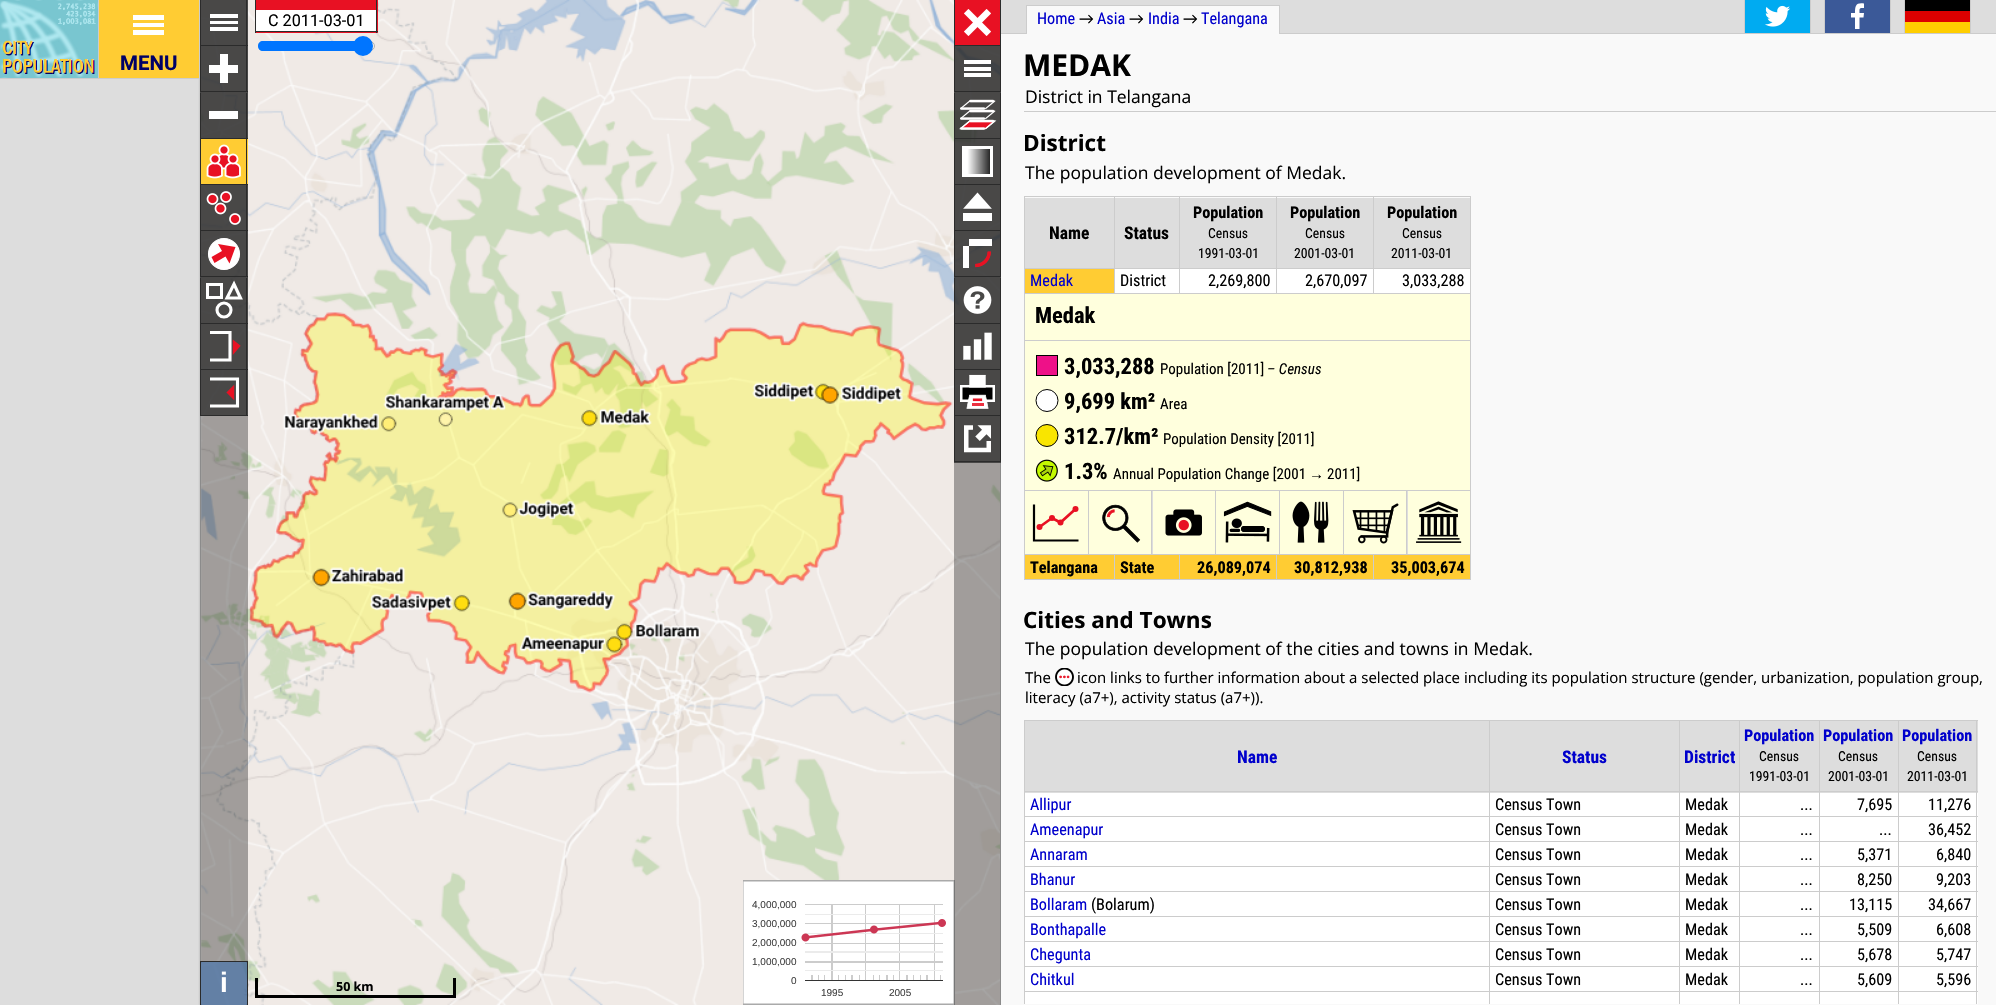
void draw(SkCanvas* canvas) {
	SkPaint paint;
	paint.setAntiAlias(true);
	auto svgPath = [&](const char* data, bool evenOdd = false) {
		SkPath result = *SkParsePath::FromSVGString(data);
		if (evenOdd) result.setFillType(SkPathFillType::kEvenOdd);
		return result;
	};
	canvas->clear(0xfff9f9f9);
	paint.setStroke(true);
	paint.setStrokeWidth(1);
	paint.setColor(0xffcccccc);
	canvas->drawRect(SkRect::MakeXYWH(200.5, -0.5, 800, 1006), paint);
	canvas->drawImageRect(SkImages::DeferredFromEncodedData(SkData::MakeFromFileName("img11.png")), SkRect::MakeXYWH(201, 0, 799, 1005), SkSamplingOptions());
	paint.setStroke(false);
	paint.setColor(0x662b2b2b);
	canvas->drawRect(SkRect::MakeXYWH(200, 0, 48, 1005), paint);
	paint.setColor(0xbf2b2b2b);
	canvas->drawRect(SkRect::MakeXYWH(201, 0, 47, 45), paint);
	paint.setColor(0xff2b2b2b);
	canvas->drawRect(SkRect::MakeXYWH(200, 45, 48, 1), paint);
	canvas->drawRect(SkRect::MakeXYWH(200, 0, 1, 45), paint);
	paint.setColor(0xffffffff);
	canvas->drawRect(SkRect::MakeXYWH(210, 14, 28, 4), paint);
	paint.setColor(0xff2b2b2b);
	canvas->drawRect(SkRect::MakeXYWH(246, 0, 1, 45), paint);
	paint.setColor(0xffffffff);
	canvas->drawRect(SkRect::MakeXYWH(210, 21, 28, 3), paint);
	canvas->drawRect(SkRect::MakeXYWH(210, 27, 28, 4), paint);
	paint.setColor(0xbf2b2b2b);
	canvas->drawRect(SkRect::MakeXYWH(200, 46, 48, 47), paint);
	paint.setColor(0xff2b2b2b);
	canvas->drawRect(SkRect::MakeXYWH(200, 91, 48, 1), paint);
	canvas->drawRect(SkRect::MakeXYWH(200, 46, 1, 45), paint);
	paint.setColor(0xffffffff);
	canvas->drawRect(SkRect::MakeXYWH(209, 65, 29, 8), paint);
	canvas->drawRect(SkRect::MakeXYWH(220, 54, 8, 29), paint);
	paint.setColor(0xff2b2b2b);
	canvas->drawRect(SkRect::MakeXYWH(246, 46, 1, 45), paint);
	paint.setColor(0xbf2b2b2b);
	canvas->drawRect(SkRect::MakeXYWH(201, 93, 47, 45), paint);
	paint.setColor(0xff2b2b2b);
	canvas->drawRect(SkRect::MakeXYWH(200, 138, 48, 1), paint);
	canvas->drawRect(SkRect::MakeXYWH(200, 93, 1, 45), paint);
	paint.setColor(0xffffffff);
	canvas->drawRect(SkRect::MakeXYWH(209, 111, 29, 8), paint);
	paint.setColor(0xff2b2b2b);
	canvas->drawRect(SkRect::MakeXYWH(246, 93, 1, 45), paint);
	paint.setColor(0xffffcc33);
	canvas->drawRect(SkRect::MakeXYWH(201, 139, 47, 45), paint);
	paint.setColor(0xff2b2b2b);
	canvas->drawRect(SkRect::MakeXYWH(200, 184, 48, 1), paint);
	canvas->drawRect(SkRect::MakeXYWH(200, 139, 1, 45), paint);
	canvas->drawImageRect(SkImages::DeferredFromEncodedData(SkData::MakeFromFileName("img1.png")), SkRect::MakeXYWH(206, 144, 35, 35), SkSamplingOptions());
	canvas->drawRect(SkRect::MakeXYWH(246, 139, 1, 45), paint);
	paint.setColor(0xbf2b2b2b);
	canvas->drawRect(SkRect::MakeXYWH(201, 185, 47, 45), paint);
	paint.setColor(0xff2b2b2b);
	canvas->drawRect(SkRect::MakeXYWH(200, 230, 48, 1), paint);
	canvas->drawRect(SkRect::MakeXYWH(200, 185, 1, 45), paint);
	canvas->drawImageRect(SkImages::DeferredFromEncodedData(SkData::MakeFromFileName("img2.png")), SkRect::MakeXYWH(206, 191, 35, 34), SkSamplingOptions());
	canvas->drawRect(SkRect::MakeXYWH(246, 185, 1, 45), paint);
	paint.setColor(0xbf2b2b2b);
	canvas->drawRect(SkRect::MakeXYWH(200, 231, 48, 47), paint);
	paint.setColor(0xff2b2b2b);
	canvas->drawRect(SkRect::MakeXYWH(200, 276, 48, 1), paint);
	canvas->drawRect(SkRect::MakeXYWH(200, 231, 1, 45), paint);
	paint.setColor(0xffffffff);
	canvas->drawCircle(224, 254, 15.5, paint);
	paint.setStroke(true);
	paint.setStrokeWidth(1.1);
	canvas->drawCircle(224, 254, 15.5, paint);
	paint.setStroke(false);
	paint.setColor(0xff2b2b2b);
	canvas->drawRect(SkRect::MakeXYWH(246, 231, 1, 45), paint);
	paint.setColor(0xffe81123);
	canvas->drawPath(svgPath("M211.5 257L222 251L218 244L235.5 247L229.5 263.5L225.5 256.5L214.5 263Z"), paint);
	paint.setColor(0xbf2b2b2b);
	canvas->drawRect(SkRect::MakeXYWH(201, 278, 47, 45), paint);
	paint.setColor(0xff2b2b2b);
	canvas->drawRect(SkRect::MakeXYWH(200, 323, 48, 1), paint);
	canvas->drawRect(SkRect::MakeXYWH(200, 278, 1, 45), paint);
	paint.setStroke(true);
	paint.setStrokeWidth(3);
	paint.setColor(0xffffffff);
	canvas->drawRect(SkRect::MakeXYWH(207.5, 284.5, 14, 13), paint);
	paint.setStrokeWidth(3.1);
	canvas->drawPath(svgPath("M227 298H240.5L234 284Z"), paint);
	paint.setStroke(false);
	paint.setColor(0xff2b2b2b);
	canvas->drawRect(SkRect::MakeXYWH(246, 278, 1, 45), paint);
	paint.setStroke(true);
	paint.setColor(0xffffffff);
	canvas->drawCircle(224, 310, 7, paint);
	paint.setStroke(false);
	paint.setColor(0xbf2b2b2b);
	canvas->drawRect(SkRect::MakeXYWH(201, 324, 47, 45), paint);
	paint.setColor(0xff2b2b2b);
	canvas->drawRect(SkRect::MakeXYWH(200, 369, 48, 1), paint);
	canvas->drawRect(SkRect::MakeXYWH(200, 324, 1, 45), paint);
	paint.setStroke(true);
	paint.setColor(0xffffffff);
	canvas->drawPath(svgPath("M210 360H230V332.5H210"), paint);
	paint.setStrokeWidth(4.4);
	paint.setColor(0xffe81123);
	canvas->drawPath(svgPath("M237.5 346L235 349V344Z"), paint);
	paint.setStroke(false);
	paint.setColor(0xff2b2b2b);
	canvas->drawRect(SkRect::MakeXYWH(246, 324, 1, 45), paint);
	paint.setColor(0xbf2b2b2b);
	canvas->drawRect(SkRect::MakeXYWH(201, 370, 47, 45), paint);
	paint.setColor(0xff2b2b2b);
	canvas->drawRect(SkRect::MakeXYWH(200, 415, 48, 1), paint);
	canvas->drawRect(SkRect::MakeXYWH(200, 370, 1, 45), paint);
	paint.setStroke(true);
	paint.setStrokeWidth(3.1);
	paint.setColor(0xffffffff);
	canvas->drawPath(svgPath("M210 406H237.5V379H210"), paint);
	paint.setStroke(false);
	paint.setColor(0xff2b2b2b);
	canvas->drawRect(SkRect::MakeXYWH(246, 370, 1, 45), paint);
	paint.setStroke(true);
	paint.setStrokeWidth(4.4);
	paint.setColor(0xffe81123);
	canvas->drawPath(svgPath("M229.5 392.5L232 395V390Z"), paint);
	paint.setStroke(false);
	canvas->drawRect(SkRect::MakeXYWH(256, 0, 122, 33), paint);
	paint.setColor(0xff2b2b2b);
	canvas->drawRect(SkRect::MakeXYWH(376, 0, 1, 33), paint);
	canvas->drawRect(SkRect::MakeXYWH(255, 31, 123, 1), paint);
	canvas->drawRect(SkRect::MakeXYWH(255, 0, 1, 33), paint);
	paint.setColor(0xffffffff);
	canvas->drawRect(SkRect::MakeXYWH(256, 10, 120, 21), paint);
	SkFont f1(fontMgr->matchFamilyStyle("Roboto", SkFontStyle::Normal()), 16.25);
	f1.setSubpixel(true);
	paint.setColor(0xff000000);
	canvas->drawString("C 2011-03-01", 268, 26, f1, paint);
	paint.setColor(0xffefefef);
	canvas->drawRoundRect(SkRect::MakeXYWH(258.5, 41.5, 116, 9), 4.5, 4.5, paint);
	paint.setStroke(true);
	paint.setStrokeWidth(1);
	paint.setColor(0xffb2b2b2);
	canvas->drawRoundRect(SkRect::MakeXYWH(258.5, 41.5, 116, 9), 4.5, 4.5, paint);
	paint.setStroke(false);
	paint.setColor(0xff0075ff);
	canvas->drawPath(svgPath("M263 41H363V51H263C260 51 258 49 258 46C258 43 260 41 263 41Z"), paint);
	canvas->drawCircle(363, 46, 10, paint);
	canvas->drawImageRect(SkImages::DeferredFromEncodedData(SkData::MakeFromFileName("img12.png")), SkRect::MakeXYWH(743, 880, 212, 125), SkSamplingOptions());
	paint.setColor(0x662b2b2b);
	canvas->drawRect(SkRect::MakeXYWH(954, 46, 47, 959), paint);
	paint.setColor(0xffe81123);
	canvas->drawRect(SkRect::MakeXYWH(955, 0, 45, 45), paint);
	paint.setColor(0xff2b2b2b);
	canvas->drawRect(SkRect::MakeXYWH(954, 45, 47, 1), paint);
	canvas->drawRect(SkRect::MakeXYWH(954, 0, 1, 45), paint);
	canvas->drawImageRect(SkImages::DeferredFromEncodedData(SkData::MakeFromFileName("img3.png")), SkRect::MakeXYWH(964, 9, 27, 27), SkSamplingOptions());
	canvas->drawRect(SkRect::MakeXYWH(1000, 0, 1, 45), paint);
	paint.setColor(0xbf2b2b2b);
	canvas->drawRect(SkRect::MakeXYWH(954, 46, 47, 47), paint);
	paint.setColor(0xff2b2b2b);
	canvas->drawRect(SkRect::MakeXYWH(954, 91, 47, 1), paint);
	canvas->drawRect(SkRect::MakeXYWH(954, 46, 1, 45), paint);
	canvas->drawImageRect(SkImages::DeferredFromEncodedData(SkData::MakeFromFileName("img4.png")), SkRect::MakeXYWH(964, 60, 27, 17), SkSamplingOptions());
	canvas->drawRect(SkRect::MakeXYWH(1000, 46, 1, 45), paint);
	paint.setColor(0xbf2b2b2b);
	canvas->drawRect(SkRect::MakeXYWH(955, 93, 45, 45), paint);
	paint.setColor(0xff2b2b2b);
	canvas->drawRect(SkRect::MakeXYWH(954, 138, 47, 1), paint);
	canvas->drawRect(SkRect::MakeXYWH(954, 93, 1, 45), paint);
	canvas->drawImageRect(SkImages::DeferredFromEncodedData(SkData::MakeFromFileName("img5.png")), SkRect::MakeXYWH(959, 99, 38, 31), SkSamplingOptions());
	canvas->drawRect(SkRect::MakeXYWH(1000, 93, 1, 45), paint);
	paint.setColor(0xbf2b2b2b);
	canvas->drawRect(SkRect::MakeXYWH(955, 139, 45, 45), paint);
	paint.setColor(0xff2b2b2b);
	canvas->drawRect(SkRect::MakeXYWH(954, 184, 47, 1), paint);
	canvas->drawRect(SkRect::MakeXYWH(954, 139, 1, 45), paint);
	{
		const SkColor colors[] = {0xffffffff, 0xff000000};
		const float stops[] = {0.14, 1};
		const SkPoint ends[] = {{963, 147}, {994, 147}};
		paint.setShader(SkGradientShader::MakeLinear(ends, colors, stops, 2, SkTileMode::kClamp));
		paint.setAlpha(255);
	}
	canvas->drawRect(SkRect::MakeXYWH(965, 149, 25, 25), paint);
	paint.setStroke(true);
	paint.setStrokeWidth(3);
	paint.setShader(nullptr);
	paint.setColor(0xffffffff);
	canvas->drawRect(SkRect::MakeXYWH(963.5, 147.5, 28, 28), paint);
	paint.setStroke(false);
	paint.setColor(0xff2b2b2b);
	canvas->drawRect(SkRect::MakeXYWH(1000, 139, 1, 45), paint);
	paint.setColor(0xbf2b2b2b);
	canvas->drawRect(SkRect::MakeXYWH(955, 185, 45, 45), paint);
	paint.setColor(0xff2b2b2b);
	canvas->drawRect(SkRect::MakeXYWH(954, 230, 47, 1), paint);
	canvas->drawRect(SkRect::MakeXYWH(954, 185, 1, 45), paint);
	paint.setColor(0xffffffff);
	canvas->drawPath(svgPath("M966 207.5H989L977.5 194.5Z"), paint);
	paint.setStroke(true);
	paint.setStrokeWidth(2.6);
	canvas->drawPath(svgPath("M966 207.5H989L977.5 194.5Z"), paint);
	paint.setStroke(false);
	paint.setColor(0xff2b2b2b);
	canvas->drawRect(SkRect::MakeXYWH(1000, 185, 1, 45), paint);
	paint.setColor(0xffffffff);
	canvas->drawRect(SkRect::MakeXYWH(963, 213, 29, 8), paint);
	paint.setColor(0xbf2b2b2b);
	canvas->drawRect(SkRect::MakeXYWH(954, 231, 47, 47), paint);
	paint.setColor(0xff2b2b2b);
	canvas->drawRect(SkRect::MakeXYWH(954, 276, 47, 1), paint);
	canvas->drawRect(SkRect::MakeXYWH(954, 231, 1, 45), paint);
	canvas->drawImageRect(SkImages::DeferredFromEncodedData(SkData::MakeFromFileName("img6.png")), SkRect::MakeXYWH(963, 239, 29, 29), SkSamplingOptions());
	canvas->drawRect(SkRect::MakeXYWH(1000, 231, 1, 45), paint);
	paint.setColor(0xbf2b2b2b);
	canvas->drawRect(SkRect::MakeXYWH(955, 278, 45, 45), paint);
	paint.setColor(0xff2b2b2b);
	canvas->drawRect(SkRect::MakeXYWH(954, 323, 47, 1), paint);
	canvas->drawRect(SkRect::MakeXYWH(954, 278, 1, 45), paint);
	canvas->drawImageRect(SkImages::DeferredFromEncodedData(SkData::MakeFromFileName("img7.png")), SkRect::MakeXYWH(963, 286, 29, 28), SkSamplingOptions());
	canvas->drawRect(SkRect::MakeXYWH(1000, 278, 1, 45), paint);
	paint.setColor(0xbf2b2b2b);
	canvas->drawRect(SkRect::MakeXYWH(955, 324, 45, 45), paint);
	paint.setColor(0xff2b2b2b);
	canvas->drawRect(SkRect::MakeXYWH(954, 369, 47, 1), paint);
	canvas->drawRect(SkRect::MakeXYWH(954, 324, 1, 45), paint);
	canvas->drawImageRect(SkImages::DeferredFromEncodedData(SkData::MakeFromFileName("img8.png")), SkRect::MakeXYWH(963, 332, 29, 28), SkSamplingOptions());
	canvas->drawRect(SkRect::MakeXYWH(1000, 324, 1, 45), paint);
	paint.setColor(0xbf2b2b2b);
	canvas->drawRect(SkRect::MakeXYWH(955, 370, 45, 45), paint);
	paint.setColor(0xff2b2b2b);
	canvas->drawRect(SkRect::MakeXYWH(954, 415, 47, 1), paint);
	canvas->drawRect(SkRect::MakeXYWH(954, 370, 1, 45), paint);
	canvas->drawImageRect(SkImages::DeferredFromEncodedData(SkData::MakeFromFileName("img9.png")), SkRect::MakeXYWH(960, 374, 35, 35), SkSamplingOptions());
	canvas->drawRect(SkRect::MakeXYWH(1000, 370, 1, 45), paint);
	paint.setColor(0xbf2b2b2b);
	canvas->drawRect(SkRect::MakeXYWH(954, 416, 47, 47), paint);
	paint.setColor(0xff2b2b2b);
	canvas->drawRect(SkRect::MakeXYWH(954, 461, 47, 1), paint);
	canvas->drawRect(SkRect::MakeXYWH(954, 416, 1, 45), paint);
	canvas->drawImageRect(SkImages::DeferredFromEncodedData(SkData::MakeFromFileName("img10.png")), SkRect::MakeXYWH(964, 425, 27, 28), SkSamplingOptions());
	canvas->drawRect(SkRect::MakeXYWH(1000, 416, 1, 45), paint);
	paint.setColor(0x66ffffff);
	canvas->drawRoundRect(SkRect::MakeXYWH(200, 961, 48, 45), 5, 5, paint);
	paint.setColor(0x80003c88);
	canvas->drawRect(SkRect::MakeXYWH(200.5, 961.5, 47, 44), paint);
	paint.setStroke(true);
	paint.setStrokeWidth(1);
	paint.setColor(0xff2b2b2b);
	canvas->drawRect(SkRect::MakeXYWH(200.5, 961.5, 47, 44), paint);
	SkFont f2(fontMgr->matchFamilyStyle("Liberation Sans", SkFontStyle::Bold()), 28);
	f2.setSubpixel(true);
	paint.setStroke(false);
	paint.setColor(0xffffffff);
	canvas->drawString("i", 220, 992, f2, paint);
	paint.setColor(0xff000000);
	canvas->drawRect(SkRect::MakeXYWH(453, 978, 3, 20), paint);
	canvas->drawRect(SkRect::MakeXYWH(255, 995, 200, 3), paint);
	canvas->drawRect(SkRect::MakeXYWH(255, 978, 3, 20), paint);
	SkFont f3(fontMgr->matchFamilyStyle("Open Sans", SkFontStyle::Bold()), 12.5);
	f3.setSubpixel(true);
	canvas->drawString("50 km", 336, 991, f3, paint);
	SkFont f4(fontMgr->matchFamilyStyle("Liberation Sans", SkFontStyle::Normal()), 10);
	f4.setSubpixel(true);
	paint.setColor(0xff444444);
	canvas->drawString("4,000,000", 752, 908, f4, paint);
	canvas->drawString("3,000,000", 752, 927, f4, paint);
	canvas->drawString("2,000,000", 752, 946, f4, paint);
	canvas->drawString("1,000,000", 752, 965, f4, paint);
	canvas->drawString("0", 791, 984, f4, paint);
	canvas->drawString("1995", 821, 996, f4, paint);
	canvas->drawString("2005", 889, 996, f4, paint);
	paint.setColor(0xffdddddd);
	canvas->drawRect(SkRect::MakeXYWH(1001, 0, 995, 33), paint);
	paint.setColor(0xffcccccc);
	canvas->drawRect(SkRect::MakeXYWH(1001, 33, 995, 1), paint);
	paint.setColor(0xfff9f9f9);
	canvas->drawRect(SkRect::MakeXYWH(1027, 6, 252, 28), paint);
	paint.setColor(0xffcccccc);
	canvas->drawRect(SkRect::MakeXYWH(1026, 5, 254, 1), paint);
	canvas->drawRect(SkRect::MakeXYWH(1279, 5, 1, 29), paint);
	canvas->drawRect(SkRect::MakeXYWH(1026, 5, 1, 29), paint);
	SkFont f5(fontMgr->matchFamilyStyle("Roboto Condensed", SkFontStyle::Normal()), 16.25);
	f5.setSubpixel(true);
	paint.setColor(0xff0000cc);
	canvas->drawString("Home", 1037, 24, f5, paint);
	SkFont f6(fontMgr->matchFamilyStyle("Carlito", SkFontStyle::Normal()), 16.25);
	f6.setSubpixel(true);
	paint.setColor(0xff000000);
	canvas->drawString("→", 1079, 24, f6, paint);
	paint.setColor(0xff0000cc);
	canvas->drawString("Asia", 1097, 24, f5, paint);
	paint.setColor(0xff000000);
	canvas->drawString("→", 1129, 24, f6, paint);
	paint.setColor(0xff0000cc);
	canvas->drawString("India", 1148, 24, f5, paint);
	paint.setColor(0xff000000);
	canvas->drawString("→", 1183, 24, f6, paint);
	paint.setColor(0xff0000cc);
	canvas->drawString("Telangana", 1201, 24, f5, paint);
	paint.setColor(0xffcccccc);
	canvas->drawRect(SkRect::MakeXYWH(1744, 0, 1, 34), paint);
	canvas->drawImageRect(SkImages::DeferredFromEncodedData(SkData::MakeFromFileName("img13.png")), SkRect::MakeXYWH(1745, 0, 65, 33), SkSamplingOptions());
	canvas->drawRect(SkRect::MakeXYWH(1810, 0, 1, 34), paint);
	canvas->drawRect(SkRect::MakeXYWH(1824, 0, 1, 34), paint);
	paint.setColor(0xff3b5998);
	canvas->drawRect(SkRect::MakeXYWH(1825, 0, 65, 33), paint);
	paint.setColor(0xffcccccc);
	canvas->drawRect(SkRect::MakeXYWH(1890, 0, 1, 34), paint);
	paint.setColor(0xffffffff);
	canvas->drawPath(svgPath("M1859.5 29V17.5H1863.5L1864 13H1859.5C1859.5 8 1859 8 1864 8V3.5C1856 2.5 1855 5.5 1855 13H1851V17.5H1855V29Z"), paint);
	paint.setColor(0xffcccccc);
	canvas->drawRect(SkRect::MakeXYWH(1904, 0, 1, 34), paint);
	paint.setColor(0xff000000);
	canvas->drawRect(SkRect::MakeXYWH(1905, 0, 65, 11), paint);
	paint.setColor(0xffcccccc);
	canvas->drawRect(SkRect::MakeXYWH(1970, 0, 1, 34), paint);
	paint.setColor(0xffdd0000);
	canvas->drawRect(SkRect::MakeXYWH(1905, 11, 65, 11), paint);
	paint.setColor(0xffffce00);
	canvas->drawRect(SkRect::MakeXYWH(1905, 22, 65, 11), paint);
	canvas->drawImageRect(SkImages::DeferredFromEncodedData(SkData::MakeFromFileName("img14.png")), SkRect::MakeXYWH(0, 0, 98, 78), SkSamplingOptions());
	paint.setColor(0xffcccccc);
	canvas->drawRect(SkRect::MakeXYWH(98, 0, 1, 79), paint);
	canvas->drawRect(SkRect::MakeXYWH(0, 78, 99, 1), paint);
	paint.setColor(0xffffcc33);
	canvas->drawRect(SkRect::MakeXYWH(99, 0, 100, 78), paint);
	paint.setColor(0xffcccccc);
	canvas->drawRect(SkRect::MakeXYWH(199, 0, 1, 79), paint);
	canvas->drawRect(SkRect::MakeXYWH(99, 78, 101, 1), paint);
	paint.setColor(0xffffffff);
	canvas->drawRect(SkRect::MakeXYWH(133, 15, 31, 5), paint);
	canvas->drawRect(SkRect::MakeXYWH(133, 23, 31, 4), paint);
	canvas->drawRect(SkRect::MakeXYWH(133, 30, 31, 5), paint);
	SkFont f7(fontMgr->matchFamilyStyle("Roboto", SkFontStyle::Bold()), 20.5);
	f7.setSubpixel(true);
	paint.setColor(0xff000066);
	canvas->drawString("MENU", 120, 70, f7, paint);
	paint.setColor(0xffcccccc);
	canvas->drawRect(SkRect::MakeXYWH(1024, 111, 972, 1), paint);
	SkFont f8(fontMgr->matchFamilyStyle("Open Sans", SkFontStyle::Bold()), 30);
	f8.setSubpixel(true);
	paint.setColor(0xff000000);
	canvas->drawString("MEDAK", 1023, 76, f8, paint);
	SkFont f9(fontMgr->matchFamilyStyle("Open Sans", SkFontStyle::Normal()), 17.5);
	f9.setSubpixel(true);
	canvas->drawString("District in Telangana", 1025, 103, f9, paint);
	SkFont f10(fontMgr->matchFamilyStyle("Open Sans", SkFontStyle::Bold()), 22.5);
	f10.setSubpixel(true);
	canvas->drawString("District", 1023, 151, f10, paint);
	canvas->drawString("The population development of Medak.", 1025, 179, f9, paint);
	paint.setColor(0xffcccccc);
	canvas->drawRect(SkRect::MakeXYWH(1024, 196, 447, 1), paint);
	canvas->drawRect(SkRect::MakeXYWH(1470, 196, 1, 384), paint);
	canvas->drawRect(SkRect::MakeXYWH(1024, 579, 447, 1), paint);
	canvas->drawRect(SkRect::MakeXYWH(1024, 196, 1, 384), paint);
	paint.setColor(0xffdddddd);
	canvas->drawRect(SkRect::MakeXYWH(1025, 198, 89, 70), paint);
	SkFont f11(fontMgr->matchFamilyStyle("Roboto Condensed", SkFontStyle::Bold()), 17.5);
	f11.setSubpixel(true);
	paint.setColor(0xff000000);
	canvas->drawString("Name", 1049, 239, f11, paint);
	paint.setColor(0xffdddddd);
	canvas->drawRect(SkRect::MakeXYWH(1115, 198, 64, 70), paint);
	paint.setColor(0xffcccccc);
	canvas->drawRect(SkRect::MakeXYWH(1373, 268, 98, 1), paint);
	canvas->drawRect(SkRect::MakeXYWH(1024, 293, 447, 1), paint);
	canvas->drawRect(SkRect::MakeXYWH(1373, 268, 1, 26), paint);
	canvas->drawRect(SkRect::MakeXYWH(1276, 268, 98, 1), paint);
	canvas->drawRect(SkRect::MakeXYWH(1276, 268, 1, 26), paint);
	canvas->drawRect(SkRect::MakeXYWH(1179, 268, 99, 1), paint);
	canvas->drawRect(SkRect::MakeXYWH(1179, 268, 1, 26), paint);
	canvas->drawRect(SkRect::MakeXYWH(1114, 268, 66, 1), paint);
	canvas->drawRect(SkRect::MakeXYWH(1114, 268, 1, 26), paint);
	canvas->drawRect(SkRect::MakeXYWH(1024, 268, 91, 1), paint);
	canvas->drawRect(SkRect::MakeXYWH(1114, 196, 1, 73), paint);
	paint.setColor(0xff000000);
	canvas->drawString("Status", 1124, 239, f11, paint);
	paint.setColor(0xffdddddd);
	canvas->drawRect(SkRect::MakeXYWH(1180, 198, 96, 70), paint);
	paint.setColor(0xffcccccc);
	canvas->drawRect(SkRect::MakeXYWH(1179, 196, 1, 73), paint);
	SkFont f12(fontMgr->matchFamilyStyle("Roboto Condensed", SkFontStyle::Bold()), 16.25);
	f12.setSubpixel(true);
	paint.setColor(0xff000000);
	canvas->drawString("Population", 1193, 218, f12, paint);
	SkFont f13(fontMgr->matchFamilyStyle("Roboto Condensed", SkFontStyle::Normal()), 13.75);
	f13.setSubpixel(true);
	canvas->drawString("Census", 1208, 238, f13, paint);
	canvas->drawString("1991-03-01", 1198, 258, f13, paint);
	paint.setColor(0xffdddddd);
	canvas->drawRect(SkRect::MakeXYWH(1277, 198, 96, 70), paint);
	paint.setColor(0xffcccccc);
	canvas->drawRect(SkRect::MakeXYWH(1276, 196, 1, 73), paint);
	paint.setColor(0xff000000);
	canvas->drawString("Population", 1290, 218, f12, paint);
	canvas->drawString("Census", 1305, 238, f13, paint);
	canvas->drawString("2001-03-01", 1294, 258, f13, paint);
	paint.setColor(0xffdddddd);
	canvas->drawRect(SkRect::MakeXYWH(1374, 198, 96, 70), paint);
	paint.setColor(0xffcccccc);
	canvas->drawRect(SkRect::MakeXYWH(1373, 196, 1, 73), paint);
	paint.setColor(0xff000000);
	canvas->drawString("Population", 1387, 218, f12, paint);
	canvas->drawString("Census", 1402, 238, f13, paint);
	canvas->drawString("2011-03-01", 1391, 258, f13, paint);
	paint.setColor(0xffffcc33);
	canvas->drawRect(SkRect::MakeXYWH(1025, 269, 89, 24), paint);
	paint.setColor(0xff0000cc);
	canvas->drawString("Medak", 1030, 286, f5, paint);
	paint.setColor(0xffffffff);
	canvas->drawRect(SkRect::MakeXYWH(1115, 269, 64, 24), paint);
	paint.setColor(0xff000000);
	canvas->drawString("District", 1120, 286, f5, paint);
	paint.setColor(0xffffffff);
	canvas->drawRect(SkRect::MakeXYWH(1180, 269, 96, 24), paint);
	paint.setColor(0xff000000);
	canvas->drawString("2,269,800", 1208, 286, f5, paint);
	paint.setColor(0xffffffff);
	canvas->drawRect(SkRect::MakeXYWH(1277, 269, 96, 24), paint);
	paint.setColor(0xff000000);
	canvas->drawString("2,670,097", 1305, 286, f5, paint);
	paint.setColor(0xffffffff);
	canvas->drawRect(SkRect::MakeXYWH(1374, 269, 96, 24), paint);
	paint.setColor(0xff000000);
	canvas->drawString("3,033,288", 1402, 286, f5, paint);
	paint.setColor(0xffffffdd);
	canvas->drawRect(SkRect::MakeXYWH(1025, 294, 445, 196), paint);
	SkFont f14(fontMgr->matchFamilyStyle("Roboto Condensed", SkFontStyle::Bold()), 22.5);
	f14.setSubpixel(true);
	paint.setColor(0xff000000);
	canvas->drawString("Medak", 1035, 323, f14, paint);
	paint.setColor(0xffcccccc);
	canvas->drawRect(SkRect::MakeXYWH(1025, 340, 445, 1), paint);
	paint.setColor(0xffee1188);
	canvas->drawRect(SkRect::MakeXYWH(1036.5, 355.5, 21, 20), paint);
	paint.setStroke(true);
	paint.setColor(0xff000000);
	canvas->drawRect(SkRect::MakeXYWH(1036.5, 355.5, 21, 20), paint);
	paint.setStroke(false);
	canvas->drawString("3,033,288", 1064, 374, f14, paint);
	SkFont f15(fontMgr->matchFamilyStyle("Roboto Condensed", SkFontStyle::Normal()), 15);
	f15.setSubpixel(true);
	canvas->drawString("Population [2011]", 1160, 374, f15, paint);
	SkFont f16(fontMgr->matchFamilyStyle("Roboto Condensed", SkFontStyle::Italic()), 15);
	f16.setSubpixel(true);
	canvas->drawString("– Census", 1267, 374, f16, paint);
	paint.setColor(0xffffffff);
	canvas->drawCircle(1047, 400.5, 11, paint);
	paint.setStroke(true);
	paint.setColor(0xff000000);
	canvas->drawCircle(1047, 400.5, 11, paint);
	paint.setStroke(false);
	canvas->drawString("9,699 km²", 1064, 409, f14, paint);
	canvas->drawString("Area", 1160, 409, f15, paint);
	paint.setColor(0xfff9e500);
	canvas->drawCircle(1047, 435.5, 11, paint);
	paint.setStroke(true);
	paint.setColor(0xff000000);
	canvas->drawCircle(1047, 435.5, 11, paint);
	paint.setStroke(false);
	canvas->drawString("312.7/km²", 1064, 444, f14, paint);
	canvas->drawString("Population Density [2011]", 1163, 444, f15, paint);
	canvas->drawImageRect(SkImages::DeferredFromEncodedData(SkData::MakeFromFileName("img15.png")), SkRect::MakeXYWH(1035, 459, 23, 23), SkSamplingOptions());
	canvas->drawString("1.3%", 1064, 479, f14, paint);
	canvas->drawString("Annual Population Change [2001", 1113, 479, f15, paint);
	SkFont f17(fontMgr->matchFamilyStyle("Liberation Sans", SkFontStyle::Normal()), 15);
	f17.setSubpixel(true);
	canvas->drawString("→", 1309, 479, f17, paint);
	canvas->drawString("2011]", 1327, 479, f15, paint);
	paint.setColor(0xffdddddd);
	canvas->drawRect(SkRect::MakeXYWH(1152, 491, 256, 63), paint);
	paint.setColor(0xffcccccc);
	canvas->drawRect(SkRect::MakeXYWH(1025, 490, 445, 1), paint);
	paint.setColor(0xffffffdd);
	canvas->drawRect(SkRect::MakeXYWH(1025, 491, 63, 63), paint);
	paint.setColor(0xffcccccc);
	canvas->drawRect(SkRect::MakeXYWH(1088, 490, 1, 64), paint);
	paint.setColor(0xffffffdd);
	canvas->drawRect(SkRect::MakeXYWH(1089, 491, 62, 63), paint);
	paint.setColor(0xffcccccc);
	canvas->drawRect(SkRect::MakeXYWH(1151, 490, 1, 64), paint);
	paint.setColor(0xffffffdd);
	canvas->drawRect(SkRect::MakeXYWH(1153, 491, 62, 63), paint);
	paint.setColor(0xffcccccc);
	canvas->drawRect(SkRect::MakeXYWH(1215, 490, 1, 64), paint);
	paint.setColor(0xffffffdd);
	canvas->drawRect(SkRect::MakeXYWH(1216, 491, 63, 63), paint);
	paint.setColor(0xffcccccc);
	canvas->drawRect(SkRect::MakeXYWH(1279, 490, 1, 64), paint);
	paint.setColor(0xffffffdd);
	canvas->drawRect(SkRect::MakeXYWH(1280, 491, 63, 63), paint);
	paint.setColor(0xffcccccc);
	canvas->drawRect(SkRect::MakeXYWH(1343, 490, 1, 64), paint);
	paint.setColor(0xffffffdd);
	canvas->drawRect(SkRect::MakeXYWH(1344, 491, 62, 63), paint);
	paint.setColor(0xffcccccc);
	canvas->drawRect(SkRect::MakeXYWH(1406, 490, 1, 64), paint);
	paint.setColor(0xffffffdd);
	canvas->drawRect(SkRect::MakeXYWH(1408, 491, 62, 63), paint);
	paint.setStroke(true);
	paint.setStrokeWidth(2.2);
	paint.setColor(0xff000000);
	canvas->drawPath(svgPath("M1034 504.5V540.5H1078.5"), paint);
	canvas->drawImageRect(SkImages::DeferredFromEncodedData(SkData::MakeFromFileName("img16.png")), SkRect::MakeXYWH(1102, 504, 39, 39), SkSamplingOptions());
	canvas->drawImageRect(SkImages::DeferredFromEncodedData(SkData::MakeFromFileName("img17.png")), SkRect::MakeXYWH(1223, 501, 49, 42), SkSamplingOptions());
	canvas->drawImageRect(SkImages::DeferredFromEncodedData(SkData::MakeFromFileName("img18.png")), SkRect::MakeXYWH(1292, 501, 37, 42), SkSamplingOptions());
	canvas->drawImageRect(SkImages::DeferredFromEncodedData(SkData::MakeFromFileName("img19.png")), SkRect::MakeXYWH(1352, 503, 47, 41), SkSamplingOptions());
	canvas->drawImageRect(SkImages::DeferredFromEncodedData(SkData::MakeFromFileName("img20.png")), SkRect::MakeXYWH(1416, 501, 46, 42), SkSamplingOptions());
	paint.setStrokeWidth(2.7);
	paint.setColor(0xffe81123);
	canvas->drawPath(svgPath("M1039.5 527L1052 518L1060.5 522.5L1075.5 509"), paint);
	paint.setStroke(false);
	canvas->drawCircle(1075.5, 509, 3, paint);
	canvas->drawImageRect(SkImages::DeferredFromEncodedData(SkData::MakeFromFileName("img21.png")), SkRect::MakeXYWH(1165, 509, 37, 27), SkSamplingOptions());
	canvas->drawCircle(1052, 518, 3, paint);
	canvas->drawCircle(1060.5, 522.5, 3, paint);
	canvas->drawCircle(1039.5, 527, 3, paint);
	paint.setColor(0xffffcc33);
	canvas->drawRect(SkRect::MakeXYWH(1025, 555, 89, 24), paint);
	paint.setColor(0xffcccccc);
	canvas->drawRect(SkRect::MakeXYWH(1373, 554, 98, 1), paint);
	canvas->drawRect(SkRect::MakeXYWH(1373, 554, 1, 26), paint);
	canvas->drawRect(SkRect::MakeXYWH(1276, 554, 98, 1), paint);
	canvas->drawRect(SkRect::MakeXYWH(1276, 554, 1, 26), paint);
	canvas->drawRect(SkRect::MakeXYWH(1179, 554, 99, 1), paint);
	canvas->drawRect(SkRect::MakeXYWH(1179, 554, 1, 26), paint);
	canvas->drawRect(SkRect::MakeXYWH(1114, 554, 66, 1), paint);
	canvas->drawRect(SkRect::MakeXYWH(1114, 554, 1, 26), paint);
	canvas->drawRect(SkRect::MakeXYWH(1024, 554, 91, 1), paint);
	paint.setColor(0xff000000);
	canvas->drawString("Telangana", 1030, 573, f12, paint);
	paint.setColor(0xffffcc33);
	canvas->drawRect(SkRect::MakeXYWH(1115, 555, 64, 24), paint);
	paint.setColor(0xff000000);
	canvas->drawString("State", 1120, 573, f12, paint);
	paint.setColor(0xffffcc33);
	canvas->drawRect(SkRect::MakeXYWH(1180, 555, 96, 24), paint);
	paint.setColor(0xff000000);
	canvas->drawString("26,089,074", 1197, 573, f12, paint);
	paint.setColor(0xffffcc33);
	canvas->drawRect(SkRect::MakeXYWH(1277, 555, 96, 24), paint);
	paint.setColor(0xff000000);
	canvas->drawString("30,812,938", 1294, 573, f12, paint);
	paint.setColor(0xffffcc33);
	canvas->drawRect(SkRect::MakeXYWH(1374, 555, 96, 24), paint);
	paint.setColor(0xff000000);
	canvas->drawString("35,003,674", 1391, 573, f12, paint);
	canvas->drawString("Cities and Towns", 1023, 628, f10, paint);
	canvas->drawString("The population development of the cities and towns in Medak.", 1025, 655, f9, paint);
	SkFont f18(fontMgr->matchFamilyStyle("Open Sans", SkFontStyle::Normal()), 15);
	f18.setSubpixel(true);
	canvas->drawString("The", 1025, 683, f18, paint);
	canvas->drawImageRect(SkImages::DeferredFromEncodedData(SkData::MakeFromFileName("img22.png")), SkRect::MakeXYWH(1055, 668, 19, 18), SkSamplingOptions());
	canvas->drawString("icon links to further information about a selected place including its population structure (gender, urbanization, population group,", 1077, 683, f18, paint);
	canvas->drawString("literacy (a7+), activity status (a7+)).", 1025, 703, f18, paint);
	paint.setColor(0xffcccccc);
	canvas->drawRect(SkRect::MakeXYWH(1024, 720, 954, 1), paint);
	paint.setColor(0xffdddddd);
	canvas->drawRect(SkRect::MakeXYWH(1899, 721, 79, 72), paint);
	paint.setColor(0xffffffff);
	canvas->drawRect(SkRect::MakeXYWH(1899, 793, 79, 211), paint);
	paint.setColor(0xffcccccc);
	canvas->drawRect(SkRect::MakeXYWH(1976, 720, 1, 284), paint);
	canvas->drawRect(SkRect::MakeXYWH(1024, 720, 1, 284), paint);
	paint.setColor(0xffdddddd);
	canvas->drawRect(SkRect::MakeXYWH(1025, 721, 464, 72), paint);
	paint.setColor(0xff0000cc);
	canvas->drawString("Name", 1237, 763, f11, paint);
	paint.setColor(0xffdddddd);
	canvas->drawRect(SkRect::MakeXYWH(1490, 721, 189, 72), paint);
	canvas->drawRect(SkRect::MakeXYWH(1680, 721, 59, 72), paint);
	canvas->drawRect(SkRect::MakeXYWH(1740, 721, 79, 72), paint);
	canvas->drawRect(SkRect::MakeXYWH(1820, 721, 78, 72), paint);
	paint.setColor(0xffcccccc);
	canvas->drawRect(SkRect::MakeXYWH(1898, 791, 80, 1), paint);
	paint.setColor(0xffffffff);
	canvas->drawRect(SkRect::MakeXYWH(1820, 793, 78, 211), paint);
	paint.setColor(0xffcccccc);
	canvas->drawRect(SkRect::MakeXYWH(1898, 816, 80, 1), paint);
	canvas->drawRect(SkRect::MakeXYWH(1898, 841, 80, 1), paint);
	canvas->drawRect(SkRect::MakeXYWH(1898, 866, 80, 1), paint);
	canvas->drawRect(SkRect::MakeXYWH(1898, 891, 80, 1), paint);
	canvas->drawRect(SkRect::MakeXYWH(1898, 916, 80, 1), paint);
	canvas->drawRect(SkRect::MakeXYWH(1898, 941, 80, 1), paint);
	canvas->drawRect(SkRect::MakeXYWH(1898, 966, 80, 1), paint);
	canvas->drawRect(SkRect::MakeXYWH(1898, 991, 80, 1), paint);
	canvas->drawRect(SkRect::MakeXYWH(1898, 991, 1, 13), paint);
	canvas->drawRect(SkRect::MakeXYWH(1819, 991, 80, 1), paint);
	canvas->drawRect(SkRect::MakeXYWH(1898, 966, 1, 27), paint);
	canvas->drawRect(SkRect::MakeXYWH(1819, 966, 80, 1), paint);
	canvas->drawRect(SkRect::MakeXYWH(1898, 941, 1, 27), paint);
	canvas->drawRect(SkRect::MakeXYWH(1819, 941, 80, 1), paint);
	canvas->drawRect(SkRect::MakeXYWH(1898, 916, 1, 27), paint);
	canvas->drawRect(SkRect::MakeXYWH(1819, 916, 80, 1), paint);
	canvas->drawRect(SkRect::MakeXYWH(1898, 891, 1, 27), paint);
	canvas->drawRect(SkRect::MakeXYWH(1819, 891, 80, 1), paint);
	canvas->drawRect(SkRect::MakeXYWH(1898, 866, 1, 27), paint);
	canvas->drawRect(SkRect::MakeXYWH(1819, 866, 80, 1), paint);
	canvas->drawRect(SkRect::MakeXYWH(1898, 841, 1, 27), paint);
	canvas->drawRect(SkRect::MakeXYWH(1819, 841, 80, 1), paint);
	canvas->drawRect(SkRect::MakeXYWH(1898, 816, 1, 27), paint);
	canvas->drawRect(SkRect::MakeXYWH(1819, 816, 80, 1), paint);
	canvas->drawRect(SkRect::MakeXYWH(1898, 791, 1, 27), paint);
	canvas->drawRect(SkRect::MakeXYWH(1819, 791, 80, 1), paint);
	paint.setColor(0xffffffff);
	canvas->drawRect(SkRect::MakeXYWH(1740, 793, 79, 211), paint);
	paint.setColor(0xffcccccc);
	canvas->drawRect(SkRect::MakeXYWH(1819, 991, 1, 13), paint);
	canvas->drawRect(SkRect::MakeXYWH(1739, 991, 81, 1), paint);
	canvas->drawRect(SkRect::MakeXYWH(1819, 966, 1, 27), paint);
	canvas->drawRect(SkRect::MakeXYWH(1739, 966, 81, 1), paint);
	canvas->drawRect(SkRect::MakeXYWH(1819, 941, 1, 27), paint);
	canvas->drawRect(SkRect::MakeXYWH(1739, 941, 81, 1), paint);
	canvas->drawRect(SkRect::MakeXYWH(1819, 916, 1, 27), paint);
	canvas->drawRect(SkRect::MakeXYWH(1739, 916, 81, 1), paint);
	canvas->drawRect(SkRect::MakeXYWH(1819, 891, 1, 27), paint);
	canvas->drawRect(SkRect::MakeXYWH(1739, 891, 81, 1), paint);
	canvas->drawRect(SkRect::MakeXYWH(1819, 866, 1, 27), paint);
	canvas->drawRect(SkRect::MakeXYWH(1739, 866, 81, 1), paint);
	canvas->drawRect(SkRect::MakeXYWH(1819, 841, 1, 27), paint);
	canvas->drawRect(SkRect::MakeXYWH(1739, 841, 81, 1), paint);
	canvas->drawRect(SkRect::MakeXYWH(1819, 816, 1, 27), paint);
	canvas->drawRect(SkRect::MakeXYWH(1739, 816, 81, 1), paint);
	canvas->drawRect(SkRect::MakeXYWH(1819, 791, 1, 27), paint);
	canvas->drawRect(SkRect::MakeXYWH(1739, 791, 81, 1), paint);
	paint.setColor(0xffffffff);
	canvas->drawRect(SkRect::MakeXYWH(1680, 793, 59, 211), paint);
	paint.setColor(0xffcccccc);
	canvas->drawRect(SkRect::MakeXYWH(1739, 991, 1, 13), paint);
	canvas->drawRect(SkRect::MakeXYWH(1679, 991, 61, 1), paint);
	canvas->drawRect(SkRect::MakeXYWH(1739, 966, 1, 27), paint);
	canvas->drawRect(SkRect::MakeXYWH(1679, 966, 61, 1), paint);
	canvas->drawRect(SkRect::MakeXYWH(1739, 941, 1, 27), paint);
	canvas->drawRect(SkRect::MakeXYWH(1679, 941, 61, 1), paint);
	canvas->drawRect(SkRect::MakeXYWH(1739, 916, 1, 27), paint);
	canvas->drawRect(SkRect::MakeXYWH(1679, 916, 61, 1), paint);
	canvas->drawRect(SkRect::MakeXYWH(1739, 891, 1, 27), paint);
	canvas->drawRect(SkRect::MakeXYWH(1679, 891, 61, 1), paint);
	canvas->drawRect(SkRect::MakeXYWH(1739, 866, 1, 27), paint);
	canvas->drawRect(SkRect::MakeXYWH(1679, 866, 61, 1), paint);
	canvas->drawRect(SkRect::MakeXYWH(1739, 841, 1, 27), paint);
	canvas->drawRect(SkRect::MakeXYWH(1679, 841, 61, 1), paint);
	canvas->drawRect(SkRect::MakeXYWH(1739, 816, 1, 27), paint);
	canvas->drawRect(SkRect::MakeXYWH(1679, 816, 61, 1), paint);
	canvas->drawRect(SkRect::MakeXYWH(1739, 791, 1, 27), paint);
	canvas->drawRect(SkRect::MakeXYWH(1679, 791, 61, 1), paint);
	paint.setColor(0xffffffff);
	canvas->drawRect(SkRect::MakeXYWH(1490, 793, 189, 211), paint);
	paint.setColor(0xffcccccc);
	canvas->drawRect(SkRect::MakeXYWH(1679, 991, 1, 13), paint);
	canvas->drawRect(SkRect::MakeXYWH(1489, 991, 191, 1), paint);
	canvas->drawRect(SkRect::MakeXYWH(1679, 966, 1, 27), paint);
	canvas->drawRect(SkRect::MakeXYWH(1489, 966, 191, 1), paint);
	canvas->drawRect(SkRect::MakeXYWH(1679, 941, 1, 27), paint);
	canvas->drawRect(SkRect::MakeXYWH(1489, 941, 191, 1), paint);
	canvas->drawRect(SkRect::MakeXYWH(1679, 916, 1, 27), paint);
	canvas->drawRect(SkRect::MakeXYWH(1489, 916, 191, 1), paint);
	canvas->drawRect(SkRect::MakeXYWH(1679, 891, 1, 27), paint);
	canvas->drawRect(SkRect::MakeXYWH(1489, 891, 191, 1), paint);
	canvas->drawRect(SkRect::MakeXYWH(1679, 866, 1, 27), paint);
	canvas->drawRect(SkRect::MakeXYWH(1489, 866, 191, 1), paint);
	canvas->drawRect(SkRect::MakeXYWH(1679, 841, 1, 27), paint);
	canvas->drawRect(SkRect::MakeXYWH(1489, 841, 191, 1), paint);
	canvas->drawRect(SkRect::MakeXYWH(1679, 816, 1, 27), paint);
	canvas->drawRect(SkRect::MakeXYWH(1489, 816, 191, 1), paint);
	canvas->drawRect(SkRect::MakeXYWH(1679, 791, 1, 27), paint);
	canvas->drawRect(SkRect::MakeXYWH(1489, 791, 191, 1), paint);
	paint.setColor(0xffffffff);
	canvas->drawRect(SkRect::MakeXYWH(1025, 793, 464, 211), paint);
	paint.setColor(0xffcccccc);
	canvas->drawRect(SkRect::MakeXYWH(1489, 991, 1, 13), paint);
	canvas->drawRect(SkRect::MakeXYWH(1024, 991, 466, 1), paint);
	canvas->drawRect(SkRect::MakeXYWH(1489, 966, 1, 27), paint);
	canvas->drawRect(SkRect::MakeXYWH(1024, 966, 466, 1), paint);
	canvas->drawRect(SkRect::MakeXYWH(1489, 941, 1, 27), paint);
	canvas->drawRect(SkRect::MakeXYWH(1024, 941, 466, 1), paint);
	canvas->drawRect(SkRect::MakeXYWH(1489, 916, 1, 27), paint);
	canvas->drawRect(SkRect::MakeXYWH(1024, 916, 466, 1), paint);
	canvas->drawRect(SkRect::MakeXYWH(1489, 891, 1, 27), paint);
	canvas->drawRect(SkRect::MakeXYWH(1024, 891, 466, 1), paint);
	canvas->drawRect(SkRect::MakeXYWH(1489, 866, 1, 27), paint);
	canvas->drawRect(SkRect::MakeXYWH(1024, 866, 466, 1), paint);
	canvas->drawRect(SkRect::MakeXYWH(1489, 841, 1, 27), paint);
	canvas->drawRect(SkRect::MakeXYWH(1024, 841, 466, 1), paint);
	canvas->drawRect(SkRect::MakeXYWH(1489, 816, 1, 27), paint);
	canvas->drawRect(SkRect::MakeXYWH(1024, 816, 466, 1), paint);
	canvas->drawRect(SkRect::MakeXYWH(1489, 791, 1, 27), paint);
	canvas->drawRect(SkRect::MakeXYWH(1024, 791, 466, 1), paint);
	canvas->drawRect(SkRect::MakeXYWH(1489, 720, 1, 73), paint);
	paint.setColor(0xff0000cc);
	canvas->drawString("Status", 1562, 763, f11, paint);
	paint.setColor(0xffcccccc);
	canvas->drawRect(SkRect::MakeXYWH(1679, 720, 1, 73), paint);
	paint.setColor(0xff0000cc);
	canvas->drawString("District", 1684, 763, f11, paint);
	paint.setColor(0xffcccccc);
	canvas->drawRect(SkRect::MakeXYWH(1739, 720, 1, 73), paint);
	paint.setColor(0xff0000cc);
	canvas->drawString("Population", 1744, 741, f12, paint);
	paint.setColor(0xff000000);
	canvas->drawString("Census", 1759, 761, f13, paint);
	canvas->drawString("1991-03-01", 1749, 781, f13, paint);
	paint.setColor(0xffcccccc);
	canvas->drawRect(SkRect::MakeXYWH(1819, 720, 1, 73), paint);
	paint.setColor(0xff0000cc);
	canvas->drawString("Population", 1823, 741, f12, paint);
	paint.setColor(0xff000000);
	canvas->drawString("Census", 1838, 761, f13, paint);
	canvas->drawString("2001-03-01", 1828, 781, f13, paint);
	paint.setColor(0xffcccccc);
	canvas->drawRect(SkRect::MakeXYWH(1898, 720, 1, 73), paint);
	paint.setColor(0xff0000cc);
	canvas->drawString("Population", 1902, 741, f12, paint);
	paint.setColor(0xff000000);
	canvas->drawString("Census", 1917, 761, f13, paint);
	canvas->drawString("2011-03-01", 1907, 781, f13, paint);
	paint.setColor(0xff0000cc);
	canvas->drawString("Allipur", 1030, 810, f5, paint);
	paint.setColor(0xff000000);
	canvas->drawString("Census Town", 1495, 810, f5, paint);
	canvas->drawString("Medak", 1685, 810, f5, paint);
	canvas->drawString("...", 1800, 810, f5, paint);
	canvas->drawString("7,695", 1857, 810, f5, paint);
	canvas->drawString("11,276", 1928, 810, f5, paint);
	paint.setColor(0xff0000cc);
	canvas->drawString("Ameenapur", 1030, 835, f5, paint);
	paint.setColor(0xff000000);
	canvas->drawString("Census Town", 1495, 835, f5, paint);
	canvas->drawString("Medak", 1685, 835, f5, paint);
	canvas->drawString("...", 1800, 835, f5, paint);
	canvas->drawString("...", 1879, 835, f5, paint);
	canvas->drawString("36,452", 1928, 835, f5, paint);
	paint.setColor(0xff0000cc);
	canvas->drawString("Annaram", 1030, 860, f5, paint);
	paint.setColor(0xff000000);
	canvas->drawString("Census Town", 1495, 860, f5, paint);
	canvas->drawString("Medak", 1685, 860, f5, paint);
	canvas->drawString("...", 1800, 860, f5, paint);
	canvas->drawString("5,371", 1857, 860, f5, paint);
	canvas->drawString("6,840", 1936, 860, f5, paint);
	paint.setColor(0xff0000cc);
	canvas->drawString("Bhanur", 1030, 885, f5, paint);
	paint.setColor(0xff000000);
	canvas->drawString("Census Town", 1495, 885, f5, paint);
	canvas->drawString("Medak", 1685, 885, f5, paint);
	canvas->drawString("...", 1800, 885, f5, paint);
	canvas->drawString("8,250", 1857, 885, f5, paint);
	canvas->drawString("9,203", 1936, 885, f5, paint);
	paint.setColor(0xff0000cc);
	canvas->drawString("Bollaram", 1030, 910, f5, paint);
	paint.setColor(0xff000000);
	canvas->drawString("(Bolarum)", 1091, 910, f5, paint);
	canvas->drawString("Census Town", 1495, 910, f5, paint);
	canvas->drawString("Medak", 1685, 910, f5, paint);
	canvas->drawString("...", 1800, 910, f5, paint);
	canvas->drawString("13,115", 1849, 910, f5, paint);
	canvas->drawString("34,667", 1928, 910, f5, paint);
	paint.setColor(0xff0000cc);
	canvas->drawString("Bonthapalle", 1030, 935, f5, paint);
	paint.setColor(0xff000000);
	canvas->drawString("Census Town", 1495, 935, f5, paint);
	canvas->drawString("Medak", 1685, 935, f5, paint);
	canvas->drawString("...", 1800, 935, f5, paint);
	canvas->drawString("5,509", 1857, 935, f5, paint);
	canvas->drawString("6,608", 1936, 935, f5, paint);
	paint.setColor(0xff0000cc);
	canvas->drawString("Chegunta", 1030, 960, f5, paint);
	paint.setColor(0xff000000);
	canvas->drawString("Census Town", 1495, 960, f5, paint);
	canvas->drawString("Medak", 1685, 960, f5, paint);
	canvas->drawString("...", 1800, 960, f5, paint);
	canvas->drawString("5,678", 1857, 960, f5, paint);
	canvas->drawString("5,747", 1936, 960, f5, paint);
	paint.setColor(0xff0000cc);
	canvas->drawString("Chitkul", 1030, 985, f5, paint);
	paint.setColor(0xff000000);
	canvas->drawString("Census Town", 1495, 985, f5, paint);
	canvas->drawString("Medak", 1685, 985, f5, paint);
	canvas->drawString("...", 1800, 985, f5, paint);
	canvas->drawString("5,609", 1857, 985, f5, paint);
	canvas->drawString("5,596", 1936, 985, f5, paint);
	paint.setColor(0xffdddddd);
	canvas->drawRect(SkRect::MakeXYWH(0, 79, 200, 926), paint);
	canvas->drawImageRect(SkImages::DeferredFromEncodedData(SkData::MakeFromFileName("img23.png")), SkRect::MakeXYWH(198, 79, 2, 926), SkSamplingOptions());
}
